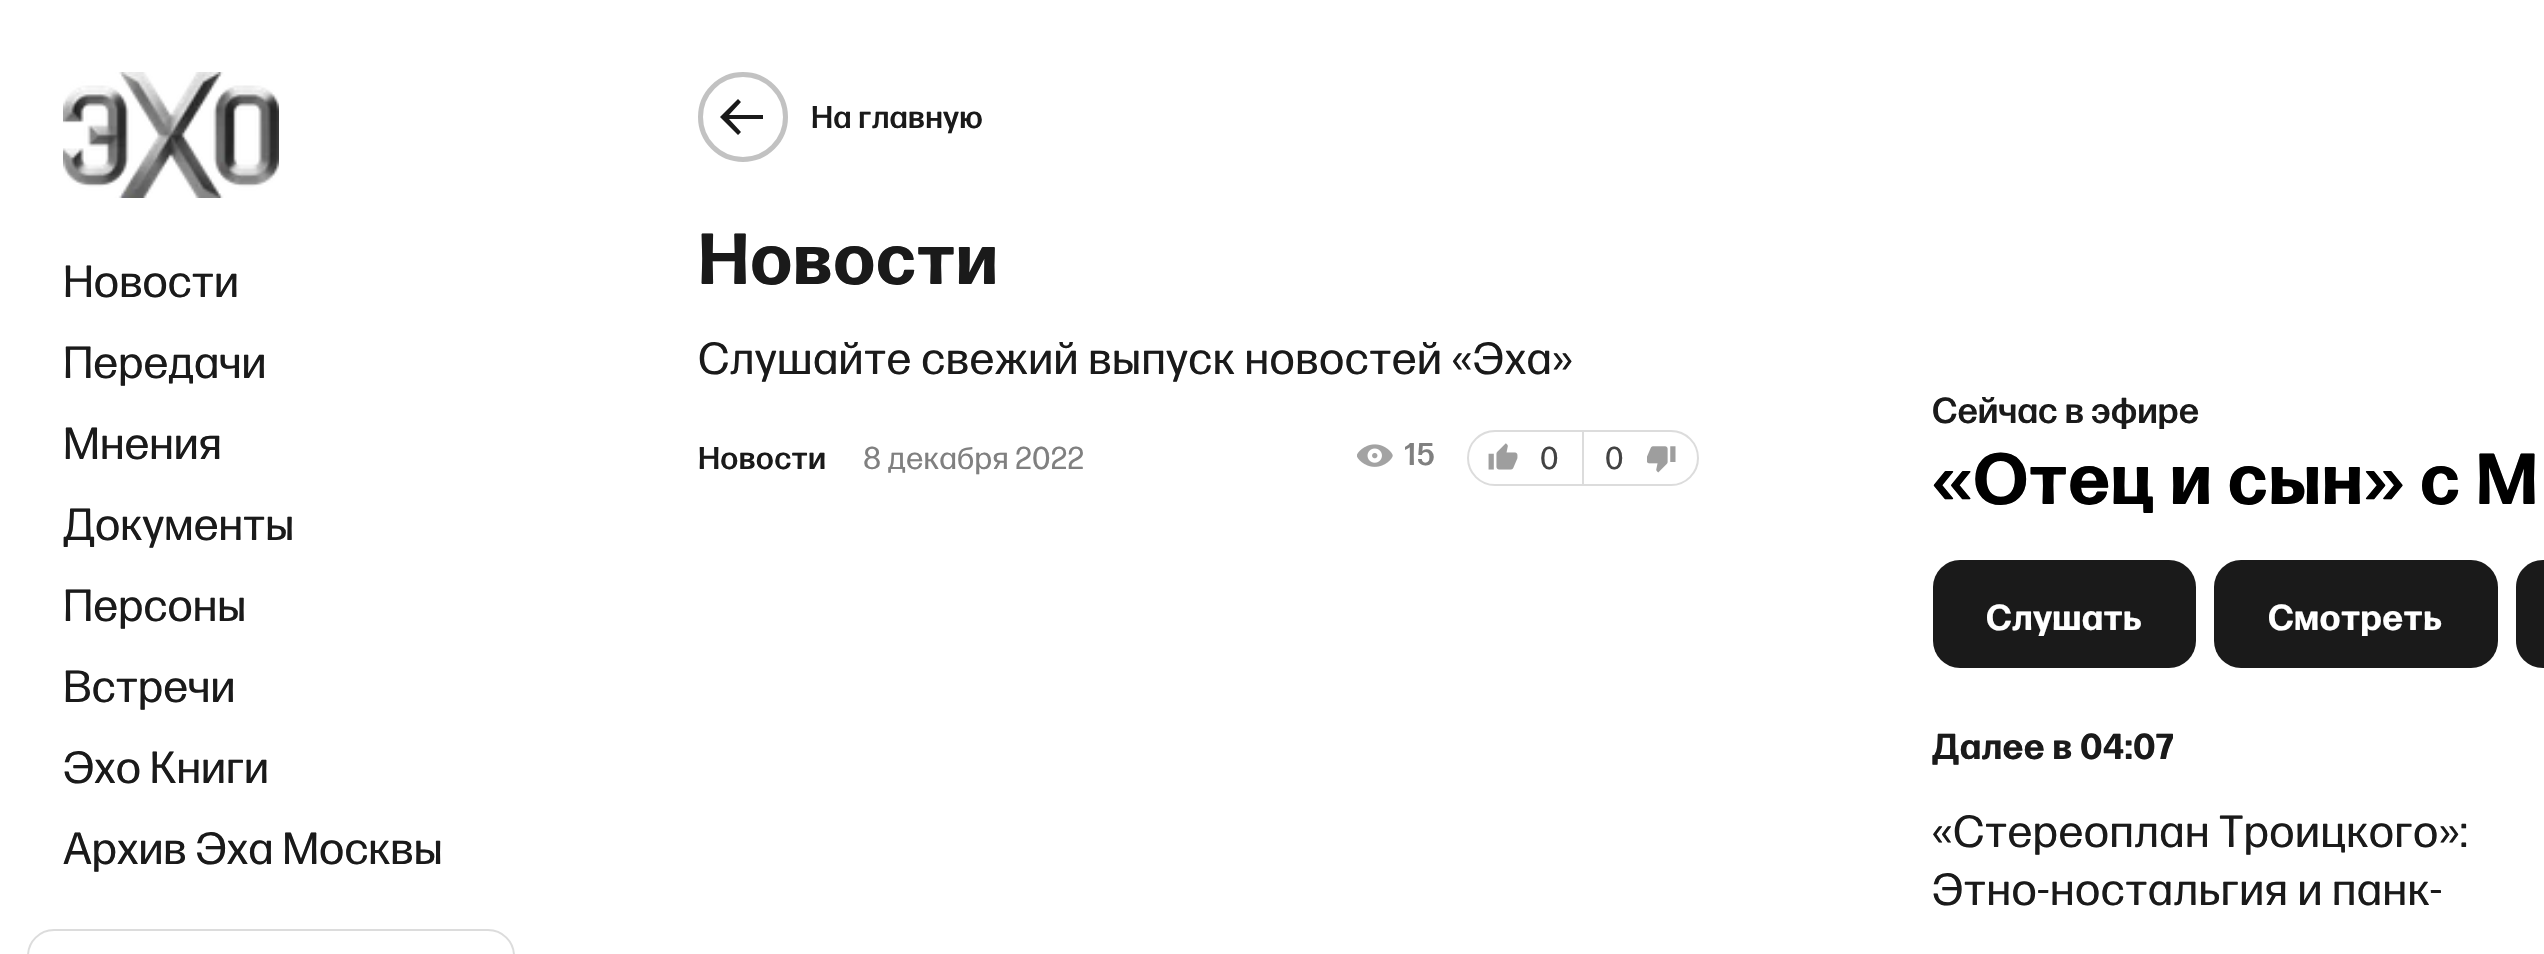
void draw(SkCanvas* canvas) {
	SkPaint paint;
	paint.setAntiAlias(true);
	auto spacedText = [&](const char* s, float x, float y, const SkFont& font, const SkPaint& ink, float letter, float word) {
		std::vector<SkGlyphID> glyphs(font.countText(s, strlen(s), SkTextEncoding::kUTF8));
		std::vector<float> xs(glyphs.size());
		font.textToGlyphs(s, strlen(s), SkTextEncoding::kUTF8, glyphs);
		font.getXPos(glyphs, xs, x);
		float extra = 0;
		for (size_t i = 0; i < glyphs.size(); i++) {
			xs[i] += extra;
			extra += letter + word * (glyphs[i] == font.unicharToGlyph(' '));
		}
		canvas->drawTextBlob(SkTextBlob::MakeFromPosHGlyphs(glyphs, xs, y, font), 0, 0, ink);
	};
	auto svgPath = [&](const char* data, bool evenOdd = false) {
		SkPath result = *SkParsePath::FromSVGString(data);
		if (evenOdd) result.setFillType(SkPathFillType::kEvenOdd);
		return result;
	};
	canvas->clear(0xffffffff);
	canvas->drawImageRect(SkImages::DeferredFromEncodedData(SkData::MakeFromFileName("img1.png")), SkRect::MakeXYWH(63, 72, 216, 126), SkSamplingOptions());
	SkFont f1(fontMgr->matchFamilyStyle("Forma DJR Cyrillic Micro", SkFontStyle::Normal()), 45);
	f1.setSubpixel(true);
	paint.setColor(0xff1a1a1a);
	canvas->drawString("Новости", 63, 297, f1, paint);
	canvas->drawString("Передачи", 63, 378, f1, paint);
	canvas->drawString("Мнения", 63, 459, f1, paint);
	canvas->drawString("Документы", 63, 540, f1, paint);
	canvas->drawString("Персоны", 63, 621, f1, paint);
	canvas->drawString("Встречи", 63, 702, f1, paint);
	canvas->drawString("Эхо Книги", 63, 783, f1, paint);
	canvas->drawString("Архив Эха Москвы", 63, 864, f1, paint);
	paint.setStroke(true);
	paint.setStrokeWidth(2);
	paint.setColor(0xffdcdcdc);
	canvas->drawRoundRect(SkRect::MakeXYWH(28, 930, 486, 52), 26, 26, paint);
	paint.setStrokeWidth(5);
	paint.setColor(0xffc2c2c2);
	canvas->drawCircle(743, 117, 42.5, paint);
	paint.setStroke(false);
	paint.setColor(0xff1a1a1a);
	canvas->drawPath(svgPath("M763 115V119H729L741 132L738 135L720 117L738 99L741 102L729 115Z"), paint);
	SkFont f2(fontMgr->matchFamilyStyle("Forma DJR Cyrillic Micro", SkFontStyle(500, SkFontStyle::kNormal_Width, SkFontStyle::kUpright_Slant)), 31.5);
	f2.setSubpixel(true);
	spacedText("На главную", 811, 128, f2, paint, 0.25, 0);
	SkFont f3(fontMgr->matchFamilyStyle("Forma DJR Cyrillic Micro", SkFontStyle::Bold()), 72);
	f3.setSubpixel(true);
	spacedText("Новости", 698, 284, f3, paint, 0.75, 0);
	spacedText("Слушайте свежий выпуск новостей «Эха»", 698, 374, f1, paint, 0.45, 0);
	spacedText("Новости", 698, 469, f2, paint, 0.25, 0);
	SkFont f4(fontMgr->matchFamilyStyle("Forma DJR Cyrillic Micro", SkFontStyle::Normal()), 31.5);
	f4.setSubpixel(true);
	paint.setColor(0xff808080);
	spacedText("8 декабря 2022", 863, 469, f4, paint, 0.25, 0);
	canvas->drawImageRect(SkImages::DeferredFromEncodedData(SkData::MakeFromFileName("img2.png")), SkRect::MakeXYWH(1357, 444, 36, 23), SkSamplingOptions());
	spacedText("15", 1404, 465, f2, paint, 0.25, 0);
	paint.setStroke(true);
	paint.setStrokeWidth(2);
	paint.setColor(0xffdcdcdc);
	canvas->drawRoundRect(SkRect::MakeXYWH(1468, 431, 230, 54), 27, 27, paint);
	paint.setStroke(false);
	canvas->drawRect(SkRect::MakeXYWH(1582, 432, 2, 52), paint);
	canvas->drawImageRect(SkImages::DeferredFromEncodedData(SkData::MakeFromFileName("img3.png")), SkRect::MakeXYWH(1488, 443, 30, 27), SkSamplingOptions());
	paint.setColor(0xff434343);
	spacedText("0", 1540, 469, f4, paint, 0.25, 0);
	spacedText("0", 1605, 469, f4, paint, 0.25, 0);
	canvas->drawImageRect(SkImages::DeferredFromEncodedData(SkData::MakeFromFileName("img4.png")), SkRect::MakeXYWH(1647, 446, 29, 27), SkSamplingOptions());
	SkFont f5(fontMgr->matchFamilyStyle("Forma DJR Cyrillic Micro", SkFontStyle(500, SkFontStyle::kNormal_Width, SkFontStyle::kUpright_Slant)), 36);
	f5.setSubpixel(true);
	paint.setColor(0xff1a1a1a);
	canvas->drawString("Сейчас в эфире", 1932, 423, f5, paint);
	paint.setColor(0xff000000);
	spacedText("«Отец и сын» с М", 1932, 504, f3, paint, 0.75, 0);
	paint.setColor(0xff1a1a1a);
	canvas->drawRoundRect(SkRect::MakeXYWH(1933, 560, 263, 108), 27, 27, paint);
	SkFont f6(fontMgr->matchFamilyStyle("Forma DJR Cyrillic Micro", SkFontStyle::Bold()), 36);
	f6.setSubpixel(true);
	paint.setColor(0xffffffff);
	spacedText("Слушать", 1986, 630, f6, paint, 0.4, 0);
	paint.setColor(0xff1a1a1a);
	canvas->drawRoundRect(SkRect::MakeXYWH(2214, 560, 284, 108), 27, 27, paint);
	paint.setColor(0xffffffff);
	spacedText("Смотреть", 2268, 630, f6, paint, 0.4, 0);
	paint.setColor(0xff1a1a1a);
	canvas->drawPath(svgPath("M2543 560H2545V668H2543C2528 668 2516 656 2516 641V587C2516 572 2528 560 2543 560Z"), paint);
	spacedText("Далее в 04:07", 1932, 759, f6, paint, 0.4, 0);
	spacedText("«Стереоплан Троицкого»:", 1932, 847, f1, paint, 0.45, 0);
	spacedText("Этно-ностальгия и панк-", 1932, 905, f1, paint, 0.45, 0);
}
